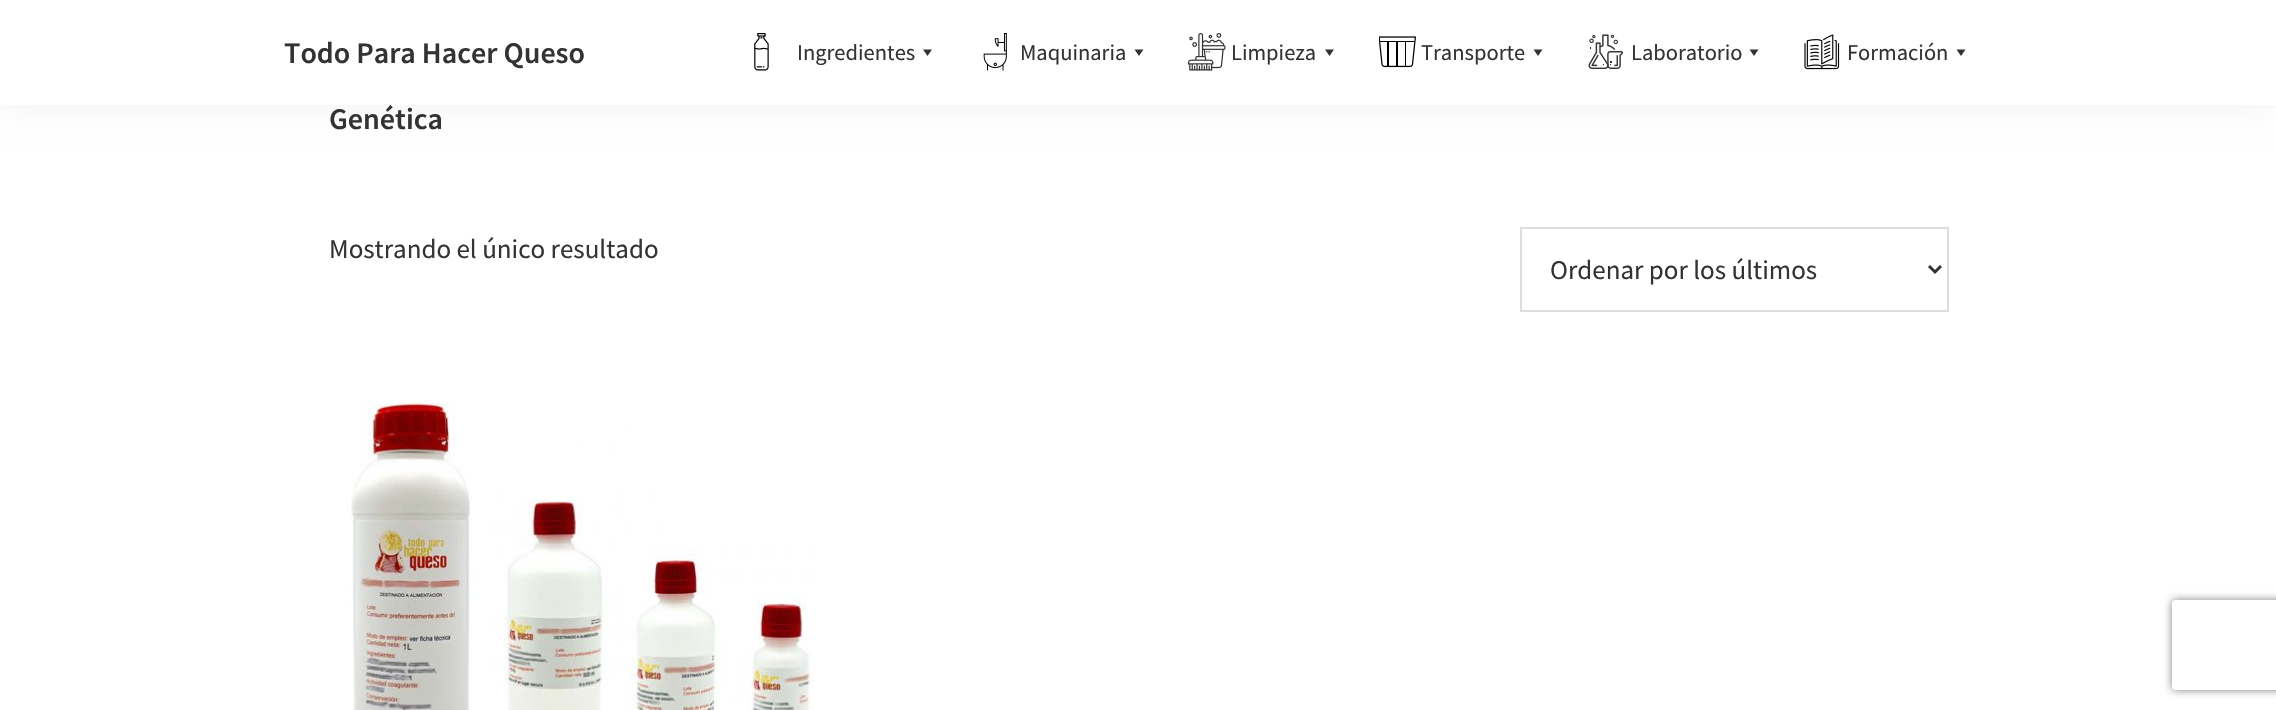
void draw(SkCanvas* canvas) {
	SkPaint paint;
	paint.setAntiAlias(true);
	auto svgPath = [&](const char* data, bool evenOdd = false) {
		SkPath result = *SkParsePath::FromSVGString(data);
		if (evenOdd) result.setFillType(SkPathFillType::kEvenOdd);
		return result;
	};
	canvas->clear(0xffffffff);
	paint.setColor(0x0d000000);
	paint.setMaskFilter(SkMaskFilter::MakeBlur(kNormal_SkBlurStyle, 15));
	canvas->drawRect(SkRect::MakeXYWH(0, 0, 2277, 105), paint);
	paint.setMaskFilter(nullptr);
	SkFont f1(fontMgr->matchFamilyStyle("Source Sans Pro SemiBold", SkFontStyle(600, SkFontStyle::kNormal_Width, SkFontStyle::kUpright_Slant)), 30);
	f1.setSubpixel(true);
	paint.setColor(0xff333333);
	canvas->drawString("Genética", 329, 129, f1, paint);
	paint.setColor(0xffffffff);
	canvas->drawRect(SkRect::MakeXYWH(0, 0, 2276, 105), paint);
	paint.setColor(0xff333333);
	canvas->drawString("Todo Para Hacer Queso", 284, 63, f1, paint);
	canvas->drawImageRect(SkImages::DeferredFromEncodedData(SkData::MakeFromFileName("img1.png")), SkRect::MakeXYWH(754, 33, 15, 38), SkSamplingOptions());
	SkFont f2(fontMgr->matchFamilyStyle("Source Sans Pro", SkFontStyle::Normal()), 22.5);
	f2.setSubpixel(true);
	canvas->drawString("Ingredientes", 797, 60, f2, paint);
	canvas->drawPath(svgPath("M932 49.5L927.5 56L923 49.5Z"), paint);
	canvas->drawImageRect(SkImages::DeferredFromEncodedData(SkData::MakeFromFileName("img2.png")), SkRect::MakeXYWH(983, 33, 24, 38), SkSamplingOptions());
	canvas->drawString("Maquinaria", 1020, 60, f2, paint);
	canvas->drawPath(svgPath("M1143.5 49.5L1139 56L1134.5 49.5Z"), paint);
	canvas->drawImageRect(SkImages::DeferredFromEncodedData(SkData::MakeFromFileName("img3.png")), SkRect::MakeXYWH(1188, 33, 38, 38), SkSamplingOptions());
	canvas->drawString("Limpieza", 1231, 60, f2, paint);
	canvas->drawPath(svgPath("M1334 49.5L1329.5 56L1325 49.5Z"), paint);
	canvas->drawImageRect(SkImages::DeferredFromEncodedData(SkData::MakeFromFileName("img4.png")), SkRect::MakeXYWH(1379, 36, 37, 32), SkSamplingOptions());
	canvas->drawString("Transporte", 1421, 60, f2, paint);
	canvas->drawPath(svgPath("M1542.5 49.5L1538 56L1533.5 49.5Z"), paint);
	canvas->drawImageRect(SkImages::DeferredFromEncodedData(SkData::MakeFromFileName("img5.png")), SkRect::MakeXYWH(1588, 34, 35, 35), SkSamplingOptions());
	canvas->drawString("Laboratorio", 1631, 60, f2, paint);
	canvas->drawPath(svgPath("M1758.5 49.5L1754 56L1749.5 49.5Z"), paint);
	canvas->drawImageRect(SkImages::DeferredFromEncodedData(SkData::MakeFromFileName("img6.png")), SkRect::MakeXYWH(1804, 34, 36, 36), SkSamplingOptions());
	canvas->drawString("Formación", 1847, 60, f2, paint);
	canvas->drawPath(svgPath("M1965.5 49.5L1961 56L1956.5 49.5Z"), paint);
	SkFont f3(fontMgr->matchFamilyStyle("Source Sans Pro", SkFontStyle::Normal()), 27);
	f3.setSubpixel(true);
	canvas->drawString("Mostrando el único resultado", 329, 258, f3, paint);
	paint.setStroke(true);
	paint.setStrokeWidth(2);
	paint.setColor(0xffdddddd);
	canvas->drawRect(SkRect::MakeXYWH(1521, 228, 427, 83), paint);
	paint.setStrokeWidth(3);
	paint.setColor(0xff333333);
	canvas->drawPath(svgPath("M1929 266L1935 272L1941 266"), paint);
	paint.setStroke(false);
	canvas->drawString("Ordenar por los últimos", 1550, 279, f3, paint);
	canvas->drawImageRect(SkImages::DeferredFromEncodedData(SkData::MakeFromFileName("img7.png")), SkRect::MakeXYWH(351, 402, 463, 308), SkSamplingOptions());
	canvas->save();
	canvas->clipPath(svgPath("M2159 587H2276V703H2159ZM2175 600H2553C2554.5 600 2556 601.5 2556 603V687C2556 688.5 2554.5 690 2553 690H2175C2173.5 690 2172 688.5 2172 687V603C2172 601.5 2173.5 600 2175 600Z", true), true);
	paint.setColor(0xff808080);
	paint.setMaskFilter(SkMaskFilter::MakeBlur(kNormal_SkBlurStyle, 4));
	canvas->drawRoundRect(SkRect::MakeXYWH(2172, 600, 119, 90), 3, 3, paint);
	paint.setMaskFilter(nullptr);
	canvas->restore();
}
